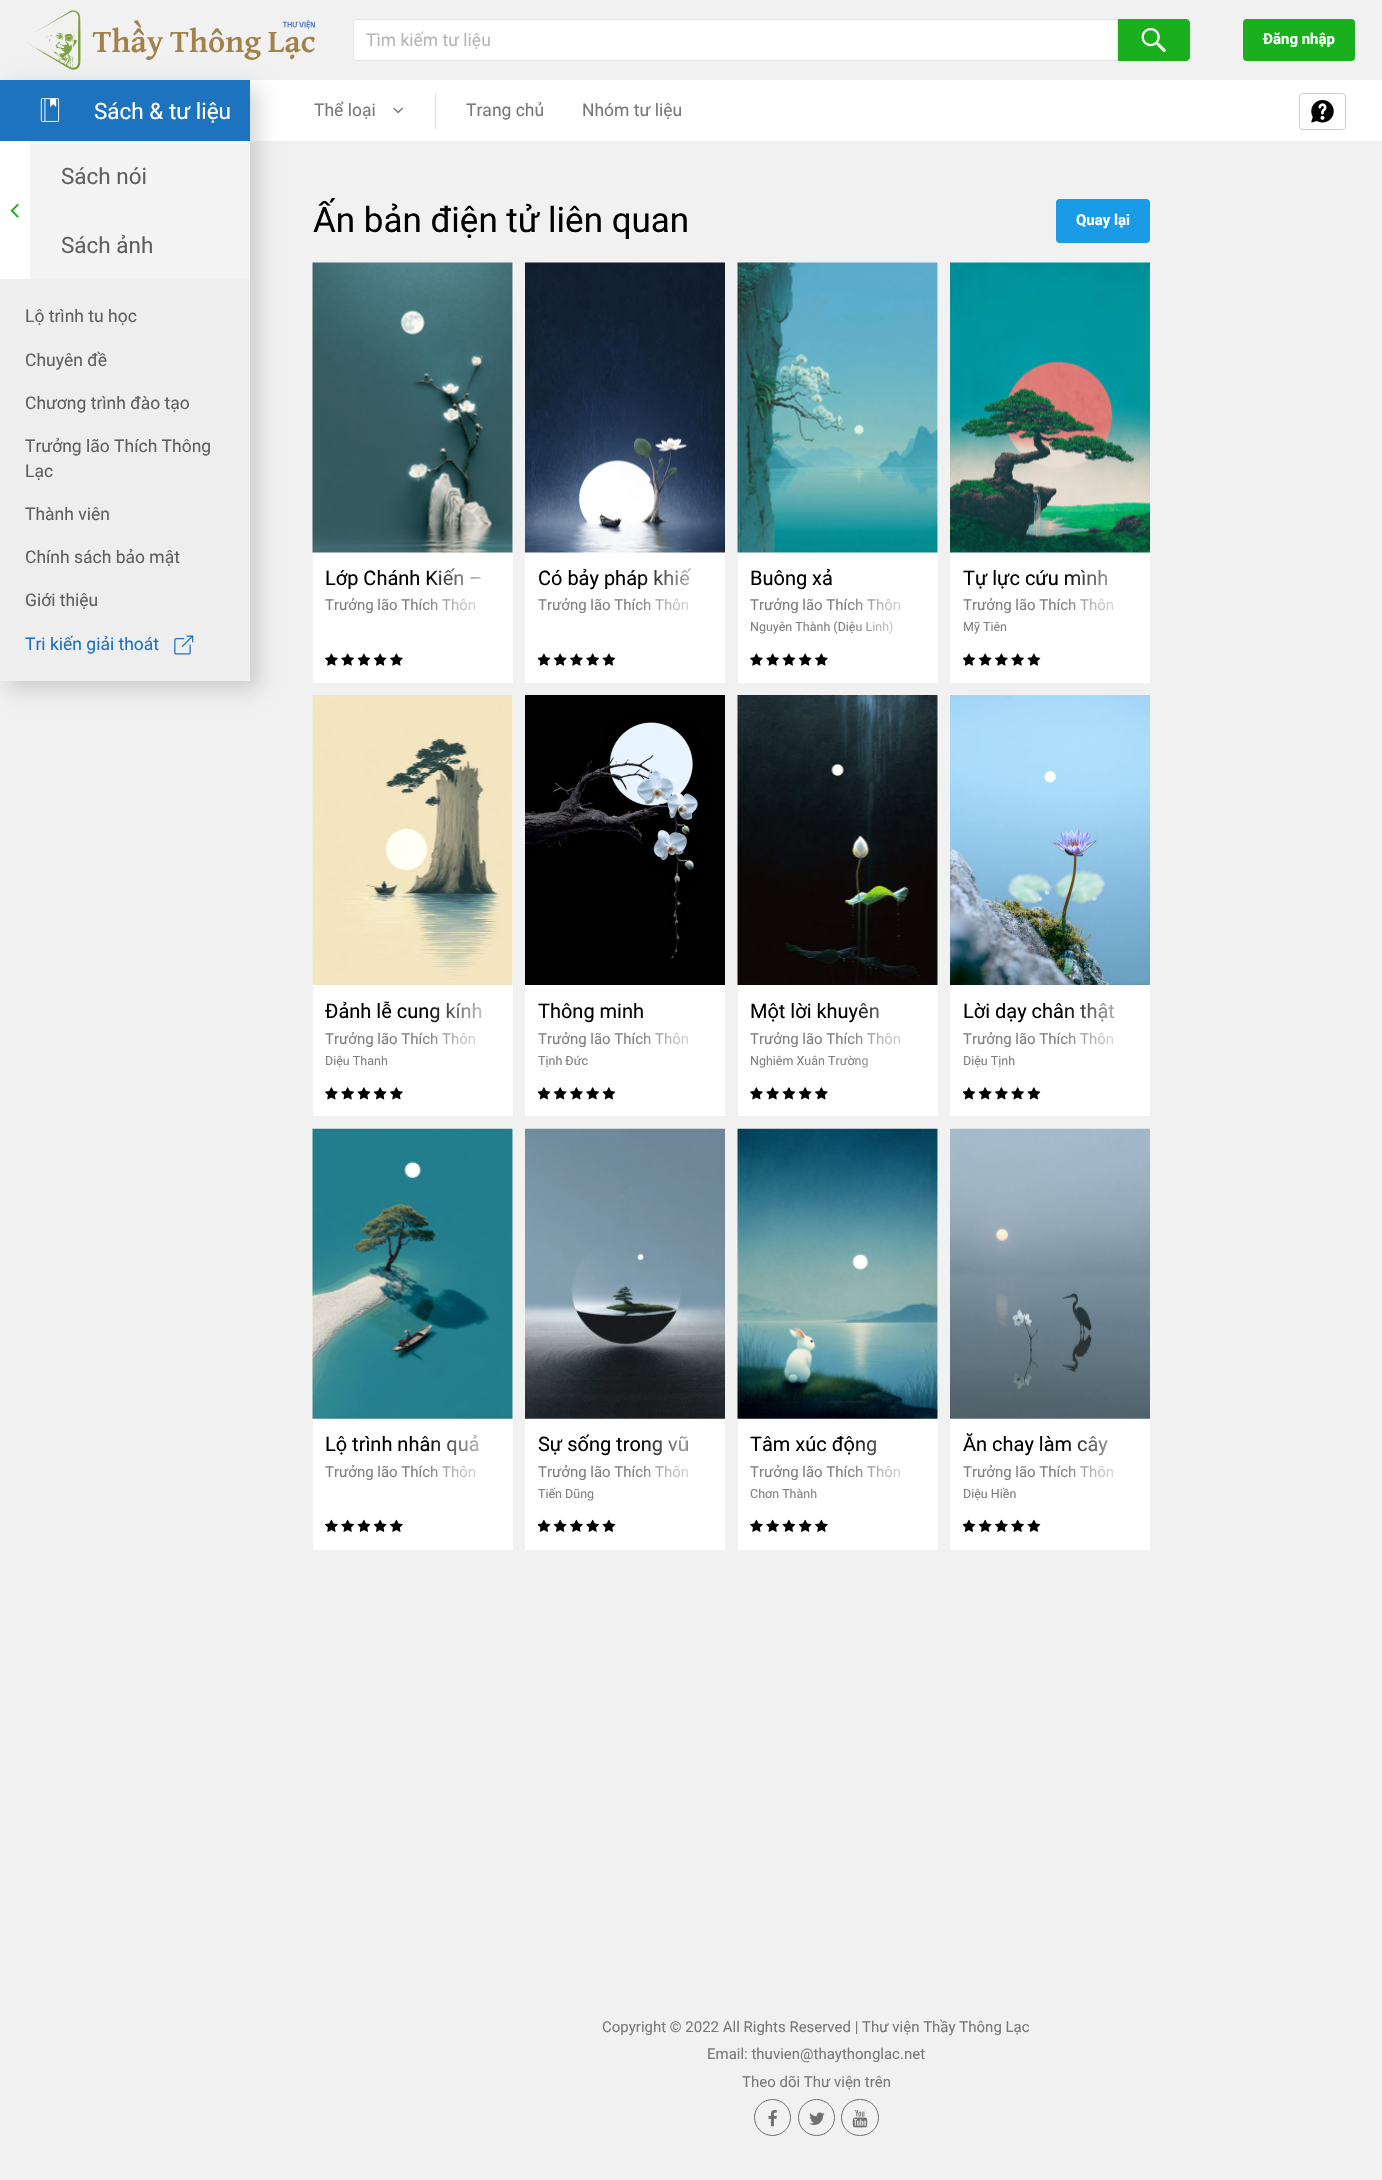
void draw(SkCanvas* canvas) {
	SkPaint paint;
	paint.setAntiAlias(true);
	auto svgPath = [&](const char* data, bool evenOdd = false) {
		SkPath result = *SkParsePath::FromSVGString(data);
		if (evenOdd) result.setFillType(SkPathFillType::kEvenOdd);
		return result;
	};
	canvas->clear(0xfff1f1f1);
	paint.setColor(0xffffffff);
	canvas->drawRect(SkRect::MakeXYWH(250, 80, 1132, 61), paint);
	paint.setColor(0x29000000);
	paint.setMaskFilter(SkMaskFilter::MakeBlur(kNormal_SkBlurStyle, 10));
	canvas->drawRect(SkRect::MakeXYWH(8, 88, 250, 601), paint);
	paint.setMaskFilter(nullptr);
	canvas->drawImageRect(SkImages::DeferredFromEncodedData(SkData::MakeFromFileName("img1.png")), SkRect::MakeXYWH(28, 10, 287, 60), SkSamplingOptions());
	paint.setColor(0xffffffff);
	canvas->drawPath(svgPath("M357 19.5H1117.5V60.5H357C355 60.5 353.5 59 353.5 57V23C353.5 21 355 19.5 357 19.5Z"), paint);
	paint.setStroke(true);
	paint.setStrokeWidth(1);
	paint.setColor(0xffe5e5e5);
	canvas->drawPath(svgPath("M357 19.5H1117.5V60.5H357C355 60.5 353.5 59 353.5 57V23C353.5 21 355 19.5 357 19.5Z"), paint);
	SkFont f1(fontMgr->matchFamilyStyle("Roboto", SkFontStyle::Normal()), 17.5);
	f1.setSubpixel(true);
	paint.setStroke(false);
	paint.setColor(0xffb7b7b7);
	canvas->drawString("Tìm kiếm tư liệu", 366, 46, f1, paint);
	paint.setColor(0xff19af1d);
	canvas->drawPath(svgPath("M1118 19H1186C1188 19 1190 21 1190 23V57C1190 59 1188 61 1186 61H1118Z"), paint);
	canvas->drawImageRect(SkImages::DeferredFromEncodedData(SkData::MakeFromFileName("img2.png")), SkRect::MakeXYWH(1141, 28, 25, 24), SkSamplingOptions());
	canvas->drawRoundRect(SkRect::MakeXYWH(1243, 19, 112, 42), 4, 4, paint);
	SkFont f2(fontMgr->matchFamilyStyle("Roboto", SkFontStyle::Bold()), 15);
	f2.setSubpixel(true);
	paint.setColor(0xffffffff);
	canvas->drawString("Đăng nhập", 1263, 44, f2, paint);
	paint.setColor(0xffeeeeee);
	canvas->drawRect(SkRect::MakeXYWH(0, 279, 250, 402), paint);
	paint.setColor(0xff1e73be);
	canvas->drawRect(SkRect::MakeXYWH(0, 80, 250, 61), paint);
	canvas->drawImageRect(SkImages::DeferredFromEncodedData(SkData::MakeFromFileName("img3.png")), SkRect::MakeXYWH(40, 98, 20, 24), SkSamplingOptions());
	SkFont f3(fontMgr->matchFamilyStyle("Roboto", SkFontStyle::Normal()), 22.5);
	f3.setSubpixel(true);
	paint.setColor(0xffffffff);
	canvas->drawString("Sách & tư liệu", 94, 119, f3, paint);
	canvas->drawRect(SkRect::MakeXYWH(0, 141, 30, 138), paint);
	canvas->drawImageRect(SkImages::DeferredFromEncodedData(SkData::MakeFromFileName("img4.png")), SkRect::MakeXYWH(10, 203, 9, 15), SkSamplingOptions());
	paint.setColor(0xfff5f4f5);
	canvas->drawRect(SkRect::MakeXYWH(30, 141, 220, 138), paint);
	paint.setColor(0xff5f5f5f);
	canvas->drawString("Sách nói", 61, 184, f3, paint);
	canvas->drawString("Sách ảnh", 61, 253, f3, paint);
	canvas->drawString("Lộ trình tu học", 25, 322, f1, paint);
	canvas->drawString("Chuyên đề", 25, 366, f1, paint);
	canvas->drawString("Chương trình đào tạo", 25, 409, f1, paint);
	canvas->drawString("Trưởng lão Thích Thông", 25, 452, f1, paint);
	canvas->drawString("Lạc", 25, 477, f1, paint);
	canvas->drawString("Thành viên", 25, 520, f1, paint);
	canvas->drawString("Chính sách bảo mật", 25, 563, f1, paint);
	canvas->drawString("Giới thiệu", 25, 606, f1, paint);
	paint.setColor(0xff1f73be);
	canvas->drawString("Tri kiến giải thoát", 25, 650, f1, paint);
	canvas->drawImageRect(SkImages::DeferredFromEncodedData(SkData::MakeFromFileName("img5.png")), SkRect::MakeXYWH(174, 635, 20, 20), SkSamplingOptions());
	paint.setColor(0xff787878);
	canvas->drawString("Thể loại", 314, 116, f1, paint);
	canvas->drawImageRect(SkImages::DeferredFromEncodedData(SkData::MakeFromFileName("img6.png")), SkRect::MakeXYWH(393, 107, 10, 7), SkSamplingOptions());
	paint.setColor(0xffe2e2e2);
	canvas->drawRect(SkRect::MakeXYWH(435, 93, 1, 36), paint);
	paint.setColor(0xff787878);
	canvas->drawString("Trang chủ", 466, 116, f1, paint);
	canvas->drawString("Nhóm tư liệu", 582, 116, f1, paint);
	paint.setStroke(true);
	paint.setColor(0xffcccccc);
	canvas->drawRoundRect(SkRect::MakeXYWH(1299.5, 93.5, 46, 36), 3.5, 3.5, paint);
	canvas->drawImageRect(SkImages::DeferredFromEncodedData(SkData::MakeFromFileName("img7.png")), SkRect::MakeXYWH(1311, 100, 23, 23), SkSamplingOptions());
	SkFont f4(fontMgr->matchFamilyStyle("Roboto", SkFontStyle::Normal()), 35);
	f4.setSubpixel(true);
	paint.setStroke(false);
	paint.setColor(0xff000000);
	canvas->drawString("Ấn bản điện tử liên quan", 313, 232, f4, paint);
	paint.setColor(0xff199be6);
	canvas->drawRoundRect(SkRect::MakeXYWH(1056, 199, 94, 44), 4, 4, paint);
	paint.setColor(0xffffffff);
	canvas->drawString("Quay lại", 1076, 225, f2, paint);
	canvas->drawRect(SkRect::MakeXYWH(313, 263, 200, 420), paint);
	canvas->drawImageRect(SkImages::DeferredFromEncodedData(SkData::MakeFromFileName("img8.png")), SkRect::MakeXYWH(312, 262, 201, 291), SkSamplingOptions());
	SkFont f5(fontMgr->matchFamilyStyle("Roboto", SkFontStyle::Normal()), 20);
	f5.setSubpixel(true);
	paint.setColor(0xff000000);
	canvas->drawString("Lớp Chánh Kiến –", 325, 585, f5, paint);
	{
		const SkColor colors[] = {0x00ffffff, 0xffffffff};
		const float stops[] = {0, 1};
		const SkPoint ends[] = {{425, 579}, {500, 579}};
		paint.setShader(SkGradientShader::MakeLinear(ends, colors, stops, 2, SkTileMode::kClamp));
		paint.setAlpha(255);
	}
	canvas->drawRect(SkRect::MakeXYWH(427, 568, 54, 18), paint);
	SkFont f6(fontMgr->matchFamilyStyle("Roboto", SkFontStyle::Normal()), 15);
	f6.setSubpixel(true);
	paint.setShader(nullptr);
	paint.setColor(0xff7f7f7f);
	canvas->drawString("Trưởng lão Thích Thôn", 325, 610, f6, paint);
	{
		const SkColor colors[] = {0x00ffffff, 0xffffffff};
		const float stops[] = {0, 1};
		const SkPoint ends[] = {{425, 606}, {500, 606}};
		paint.setShader(SkGradientShader::MakeLinear(ends, colors, stops, 2, SkTileMode::kClamp));
		paint.setAlpha(255);
	}
	canvas->drawRect(SkRect::MakeXYWH(427, 598, 49, 13), paint);
	canvas->drawImageRect(SkImages::DeferredFromEncodedData(SkData::MakeFromFileName("img9.png")), SkRect::MakeXYWH(325, 653, 13, 13), SkSamplingOptions());
	canvas->drawImageRect(SkImages::DeferredFromEncodedData(SkData::MakeFromFileName("img10.png")), SkRect::MakeXYWH(341, 653, 13, 13), SkSamplingOptions());
	canvas->drawImageRect(SkImages::DeferredFromEncodedData(SkData::MakeFromFileName("img11.png")), SkRect::MakeXYWH(357, 653, 14, 13), SkSamplingOptions());
	canvas->drawImageRect(SkImages::DeferredFromEncodedData(SkData::MakeFromFileName("img12.png")), SkRect::MakeXYWH(374, 653, 13, 13), SkSamplingOptions());
	canvas->drawImageRect(SkImages::DeferredFromEncodedData(SkData::MakeFromFileName("img9.png")), SkRect::MakeXYWH(390, 653, 13, 13), SkSamplingOptions());
	canvas->drawImageRect(SkImages::DeferredFromEncodedData(SkData::MakeFromFileName("img13.png")), SkRect::MakeXYWH(325, 653, 13, 13), SkSamplingOptions());
	canvas->drawImageRect(SkImages::DeferredFromEncodedData(SkData::MakeFromFileName("img14.png")), SkRect::MakeXYWH(341, 653, 13, 13), SkSamplingOptions());
	canvas->drawImageRect(SkImages::DeferredFromEncodedData(SkData::MakeFromFileName("img15.png")), SkRect::MakeXYWH(357, 653, 14, 13), SkSamplingOptions());
	canvas->drawImageRect(SkImages::DeferredFromEncodedData(SkData::MakeFromFileName("img16.png")), SkRect::MakeXYWH(373, 653, 14, 13), SkSamplingOptions());
	canvas->drawImageRect(SkImages::DeferredFromEncodedData(SkData::MakeFromFileName("img13.png")), SkRect::MakeXYWH(390, 653, 13, 13), SkSamplingOptions());
	paint.setShader(nullptr);
	paint.setColor(0xffffffff);
	canvas->drawRect(SkRect::MakeXYWH(525, 552, 200, 131), paint);
	canvas->drawImageRect(SkImages::DeferredFromEncodedData(SkData::MakeFromFileName("img17.png")), SkRect::MakeXYWH(525, 262, 200, 291), SkSamplingOptions());
	paint.setColor(0xff000000);
	canvas->drawString("Có bảy pháp khiế", 538, 585, f5, paint);
	{
		const SkColor colors[] = {0x00ffffff, 0xffffffff};
		const float stops[] = {0, 1};
		const SkPoint ends[] = {{638, 579}, {713, 579}};
		paint.setShader(SkGradientShader::MakeLinear(ends, colors, stops, 2, SkTileMode::kClamp));
		paint.setAlpha(255);
	}
	canvas->drawRect(SkRect::MakeXYWH(640, 568, 51, 18), paint);
	paint.setShader(nullptr);
	paint.setColor(0xff7f7f7f);
	canvas->drawString("Trưởng lão Thích Thôn", 538, 610, f6, paint);
	{
		const SkColor colors[] = {0x00ffffff, 0xffffffff};
		const float stops[] = {0, 1};
		const SkPoint ends[] = {{638, 606}, {713, 606}};
		paint.setShader(SkGradientShader::MakeLinear(ends, colors, stops, 2, SkTileMode::kClamp));
		paint.setAlpha(255);
	}
	canvas->drawRect(SkRect::MakeXYWH(640, 598, 48, 13), paint);
	canvas->drawImageRect(SkImages::DeferredFromEncodedData(SkData::MakeFromFileName("img18.png")), SkRect::MakeXYWH(538, 653, 13, 13), SkSamplingOptions());
	canvas->drawImageRect(SkImages::DeferredFromEncodedData(SkData::MakeFromFileName("img12.png")), SkRect::MakeXYWH(554, 653, 13, 13), SkSamplingOptions());
	canvas->drawImageRect(SkImages::DeferredFromEncodedData(SkData::MakeFromFileName("img9.png")), SkRect::MakeXYWH(570, 653, 13, 13), SkSamplingOptions());
	canvas->drawImageRect(SkImages::DeferredFromEncodedData(SkData::MakeFromFileName("img10.png")), SkRect::MakeXYWH(586, 653, 13, 13), SkSamplingOptions());
	canvas->drawImageRect(SkImages::DeferredFromEncodedData(SkData::MakeFromFileName("img11.png")), SkRect::MakeXYWH(602, 653, 14, 13), SkSamplingOptions());
	canvas->drawImageRect(SkImages::DeferredFromEncodedData(SkData::MakeFromFileName("img19.png")), SkRect::MakeXYWH(538, 653, 13, 13), SkSamplingOptions());
	canvas->drawImageRect(SkImages::DeferredFromEncodedData(SkData::MakeFromFileName("img16.png")), SkRect::MakeXYWH(553, 653, 14, 13), SkSamplingOptions());
	canvas->drawImageRect(SkImages::DeferredFromEncodedData(SkData::MakeFromFileName("img13.png")), SkRect::MakeXYWH(570, 653, 13, 13), SkSamplingOptions());
	canvas->drawImageRect(SkImages::DeferredFromEncodedData(SkData::MakeFromFileName("img14.png")), SkRect::MakeXYWH(586, 653, 13, 13), SkSamplingOptions());
	canvas->drawImageRect(SkImages::DeferredFromEncodedData(SkData::MakeFromFileName("img15.png")), SkRect::MakeXYWH(602, 653, 14, 13), SkSamplingOptions());
	paint.setShader(nullptr);
	paint.setColor(0xffffffff);
	canvas->drawRect(SkRect::MakeXYWH(738, 263, 200, 420), paint);
	canvas->drawImageRect(SkImages::DeferredFromEncodedData(SkData::MakeFromFileName("img20.png")), SkRect::MakeXYWH(737, 262, 201, 291), SkSamplingOptions());
	paint.setColor(0xff000000);
	canvas->drawString("Buông xả", 750, 585, f5, paint);
	paint.setColor(0xff7f7f7f);
	canvas->drawString("Trưởng lão Thích Thôn", 750, 610, f6, paint);
	{
		const SkColor colors[] = {0x00ffffff, 0xffffffff};
		const float stops[] = {0, 1};
		const SkPoint ends[] = {{850, 606}, {925, 606}};
		paint.setShader(SkGradientShader::MakeLinear(ends, colors, stops, 2, SkTileMode::kClamp));
		paint.setAlpha(255);
	}
	canvas->drawRect(SkRect::MakeXYWH(852, 598, 49, 13), paint);
	SkFont f7(fontMgr->matchFamilyStyle("Roboto", SkFontStyle::Normal()), 12.5);
	f7.setSubpixel(true);
	paint.setShader(nullptr);
	paint.setColor(0xff7f7f7f);
	canvas->drawString("Nguyên Thành (Diệu Linh)", 750, 631, f7, paint);
	{
		const SkColor colors[] = {0x00ffffff, 0xffffffff};
		const float stops[] = {0, 1};
		const SkPoint ends[] = {{850, 628}, {925, 628}};
		paint.setShader(SkGradientShader::MakeLinear(ends, colors, stops, 2, SkTileMode::kClamp));
		paint.setAlpha(255);
	}
	canvas->drawRect(SkRect::MakeXYWH(852, 621, 41, 13), paint);
	canvas->drawImageRect(SkImages::DeferredFromEncodedData(SkData::MakeFromFileName("img9.png")), SkRect::MakeXYWH(750, 653, 13, 13), SkSamplingOptions());
	canvas->drawImageRect(SkImages::DeferredFromEncodedData(SkData::MakeFromFileName("img10.png")), SkRect::MakeXYWH(766, 653, 13, 13), SkSamplingOptions());
	canvas->drawImageRect(SkImages::DeferredFromEncodedData(SkData::MakeFromFileName("img11.png")), SkRect::MakeXYWH(782, 653, 14, 13), SkSamplingOptions());
	canvas->drawImageRect(SkImages::DeferredFromEncodedData(SkData::MakeFromFileName("img12.png")), SkRect::MakeXYWH(799, 653, 13, 13), SkSamplingOptions());
	canvas->drawImageRect(SkImages::DeferredFromEncodedData(SkData::MakeFromFileName("img9.png")), SkRect::MakeXYWH(815, 653, 13, 13), SkSamplingOptions());
	canvas->drawImageRect(SkImages::DeferredFromEncodedData(SkData::MakeFromFileName("img13.png")), SkRect::MakeXYWH(750, 653, 13, 13), SkSamplingOptions());
	canvas->drawImageRect(SkImages::DeferredFromEncodedData(SkData::MakeFromFileName("img14.png")), SkRect::MakeXYWH(766, 653, 13, 13), SkSamplingOptions());
	canvas->drawImageRect(SkImages::DeferredFromEncodedData(SkData::MakeFromFileName("img15.png")), SkRect::MakeXYWH(782, 653, 14, 13), SkSamplingOptions());
	canvas->drawImageRect(SkImages::DeferredFromEncodedData(SkData::MakeFromFileName("img16.png")), SkRect::MakeXYWH(798, 653, 14, 13), SkSamplingOptions());
	canvas->drawImageRect(SkImages::DeferredFromEncodedData(SkData::MakeFromFileName("img13.png")), SkRect::MakeXYWH(815, 653, 13, 13), SkSamplingOptions());
	paint.setShader(nullptr);
	paint.setColor(0xffffffff);
	canvas->drawRect(SkRect::MakeXYWH(950, 552, 200, 131), paint);
	canvas->drawImageRect(SkImages::DeferredFromEncodedData(SkData::MakeFromFileName("img21.png")), SkRect::MakeXYWH(950, 262, 200, 291), SkSamplingOptions());
	paint.setColor(0xff000000);
	canvas->drawString("Tự lực cứu mình", 963, 585, f5, paint);
	{
		const SkColor colors[] = {0x00ffffff, 0xffffffff};
		const float stops[] = {0, 1};
		const SkPoint ends[] = {{1063, 579}, {1138, 579}};
		paint.setShader(SkGradientShader::MakeLinear(ends, colors, stops, 2, SkTileMode::kClamp));
		paint.setAlpha(255);
	}
	canvas->drawRect(SkRect::MakeXYWH(1065, 570, 42, 15), paint);
	paint.setShader(nullptr);
	paint.setColor(0xff7f7f7f);
	canvas->drawString("Trưởng lão Thích Thôn", 963, 610, f6, paint);
	{
		const SkColor colors[] = {0x00ffffff, 0xffffffff};
		const float stops[] = {0, 1};
		const SkPoint ends[] = {{1063, 606}, {1138, 606}};
		paint.setShader(SkGradientShader::MakeLinear(ends, colors, stops, 2, SkTileMode::kClamp));
		paint.setAlpha(255);
	}
	canvas->drawRect(SkRect::MakeXYWH(1065, 598, 48, 13), paint);
	paint.setShader(nullptr);
	paint.setColor(0xff7f7f7f);
	canvas->drawString("Mỹ Tiên", 963, 631, f7, paint);
	canvas->drawImageRect(SkImages::DeferredFromEncodedData(SkData::MakeFromFileName("img18.png")), SkRect::MakeXYWH(963, 653, 13, 13), SkSamplingOptions());
	canvas->drawImageRect(SkImages::DeferredFromEncodedData(SkData::MakeFromFileName("img12.png")), SkRect::MakeXYWH(979, 653, 13, 13), SkSamplingOptions());
	canvas->drawImageRect(SkImages::DeferredFromEncodedData(SkData::MakeFromFileName("img9.png")), SkRect::MakeXYWH(995, 653, 13, 13), SkSamplingOptions());
	canvas->drawImageRect(SkImages::DeferredFromEncodedData(SkData::MakeFromFileName("img10.png")), SkRect::MakeXYWH(1011, 653, 13, 13), SkSamplingOptions());
	canvas->drawImageRect(SkImages::DeferredFromEncodedData(SkData::MakeFromFileName("img11.png")), SkRect::MakeXYWH(1027, 653, 14, 13), SkSamplingOptions());
	canvas->drawImageRect(SkImages::DeferredFromEncodedData(SkData::MakeFromFileName("img19.png")), SkRect::MakeXYWH(963, 653, 13, 13), SkSamplingOptions());
	canvas->drawImageRect(SkImages::DeferredFromEncodedData(SkData::MakeFromFileName("img16.png")), SkRect::MakeXYWH(978, 653, 14, 13), SkSamplingOptions());
	canvas->drawImageRect(SkImages::DeferredFromEncodedData(SkData::MakeFromFileName("img13.png")), SkRect::MakeXYWH(995, 653, 13, 13), SkSamplingOptions());
	canvas->drawImageRect(SkImages::DeferredFromEncodedData(SkData::MakeFromFileName("img14.png")), SkRect::MakeXYWH(1011, 653, 13, 13), SkSamplingOptions());
	canvas->drawImageRect(SkImages::DeferredFromEncodedData(SkData::MakeFromFileName("img15.png")), SkRect::MakeXYWH(1027, 653, 14, 13), SkSamplingOptions());
	paint.setColor(0xffffffff);
	canvas->drawRect(SkRect::MakeXYWH(313, 695, 200, 421), paint);
	canvas->drawImageRect(SkImages::DeferredFromEncodedData(SkData::MakeFromFileName("img22.png")), SkRect::MakeXYWH(312, 695, 201, 290), SkSamplingOptions());
	paint.setColor(0xff000000);
	canvas->drawString("Đảnh lễ cung kính", 325, 1018, f5, paint);
	{
		const SkColor colors[] = {0x00ffffff, 0xffffffff};
		const float stops[] = {0, 1};
		const SkPoint ends[] = {{425, 1012}, {500, 1012}};
		paint.setShader(SkGradientShader::MakeLinear(ends, colors, stops, 2, SkTileMode::kClamp));
		paint.setAlpha(255);
	}
	canvas->drawRect(SkRect::MakeXYWH(427, 1003, 55, 20), paint);
	paint.setShader(nullptr);
	paint.setColor(0xff7f7f7f);
	canvas->drawString("Trưởng lão Thích Thôn", 325, 1044, f6, paint);
	{
		const SkColor colors[] = {0x00ffffff, 0xffffffff};
		const float stops[] = {0, 1};
		const SkPoint ends[] = {{425, 1039}, {500, 1039}};
		paint.setShader(SkGradientShader::MakeLinear(ends, colors, stops, 2, SkTileMode::kClamp));
		paint.setAlpha(255);
	}
	canvas->drawRect(SkRect::MakeXYWH(427, 1032, 49, 13), paint);
	paint.setShader(nullptr);
	paint.setColor(0xff7f7f7f);
	canvas->drawString("Diệu Thanh", 325, 1065, f7, paint);
	canvas->drawImageRect(SkImages::DeferredFromEncodedData(SkData::MakeFromFileName("img23.png")), SkRect::MakeXYWH(325, 1087, 13, 13), SkSamplingOptions());
	canvas->drawImageRect(SkImages::DeferredFromEncodedData(SkData::MakeFromFileName("img24.png")), SkRect::MakeXYWH(341, 1087, 13, 13), SkSamplingOptions());
	canvas->drawImageRect(SkImages::DeferredFromEncodedData(SkData::MakeFromFileName("img25.png")), SkRect::MakeXYWH(357, 1087, 13, 13), SkSamplingOptions());
	canvas->drawImageRect(SkImages::DeferredFromEncodedData(SkData::MakeFromFileName("img26.png")), SkRect::MakeXYWH(374, 1087, 13, 13), SkSamplingOptions());
	canvas->drawImageRect(SkImages::DeferredFromEncodedData(SkData::MakeFromFileName("img23.png")), SkRect::MakeXYWH(390, 1087, 13, 13), SkSamplingOptions());
	canvas->drawImageRect(SkImages::DeferredFromEncodedData(SkData::MakeFromFileName("img27.png")), SkRect::MakeXYWH(325, 1087, 13, 13), SkSamplingOptions());
	canvas->drawImageRect(SkImages::DeferredFromEncodedData(SkData::MakeFromFileName("img28.png")), SkRect::MakeXYWH(341, 1087, 13, 13), SkSamplingOptions());
	canvas->drawImageRect(SkImages::DeferredFromEncodedData(SkData::MakeFromFileName("img29.png")), SkRect::MakeXYWH(357, 1087, 14, 13), SkSamplingOptions());
	canvas->drawImageRect(SkImages::DeferredFromEncodedData(SkData::MakeFromFileName("img30.png")), SkRect::MakeXYWH(373, 1087, 14, 13), SkSamplingOptions());
	canvas->drawImageRect(SkImages::DeferredFromEncodedData(SkData::MakeFromFileName("img27.png")), SkRect::MakeXYWH(390, 1087, 13, 13), SkSamplingOptions());
	paint.setColor(0xffffffff);
	canvas->drawRect(SkRect::MakeXYWH(525, 985, 200, 131), paint);
	canvas->drawImageRect(SkImages::DeferredFromEncodedData(SkData::MakeFromFileName("img31.png")), SkRect::MakeXYWH(525, 695, 200, 290), SkSamplingOptions());
	paint.setColor(0xff000000);
	canvas->drawString("Thông minh", 538, 1018, f5, paint);
	{
		const SkColor colors[] = {0x00ffffff, 0xffffffff};
		const float stops[] = {0, 1};
		const SkPoint ends[] = {{638, 1012}, {713, 1012}};
		paint.setShader(SkGradientShader::MakeLinear(ends, colors, stops, 2, SkTileMode::kClamp));
		paint.setAlpha(255);
	}
	canvas->drawRect(SkRect::MakeXYWH(640, 1007, 2, 11), paint);
	paint.setShader(nullptr);
	paint.setColor(0xff7f7f7f);
	canvas->drawString("Trưởng lão Thích Thôn", 538, 1044, f6, paint);
	{
		const SkColor colors[] = {0x00ffffff, 0xffffffff};
		const float stops[] = {0, 1};
		const SkPoint ends[] = {{638, 1039}, {713, 1039}};
		paint.setShader(SkGradientShader::MakeLinear(ends, colors, stops, 2, SkTileMode::kClamp));
		paint.setAlpha(255);
	}
	canvas->drawRect(SkRect::MakeXYWH(640, 1032, 48, 13), paint);
	paint.setShader(nullptr);
	paint.setColor(0xff7f7f7f);
	canvas->drawString("Tịnh Đức", 538, 1065, f7, paint);
	canvas->drawImageRect(SkImages::DeferredFromEncodedData(SkData::MakeFromFileName("img32.png")), SkRect::MakeXYWH(538, 1087, 12, 13), SkSamplingOptions());
	canvas->drawImageRect(SkImages::DeferredFromEncodedData(SkData::MakeFromFileName("img26.png")), SkRect::MakeXYWH(554, 1087, 13, 13), SkSamplingOptions());
	canvas->drawImageRect(SkImages::DeferredFromEncodedData(SkData::MakeFromFileName("img23.png")), SkRect::MakeXYWH(570, 1087, 13, 13), SkSamplingOptions());
	canvas->drawImageRect(SkImages::DeferredFromEncodedData(SkData::MakeFromFileName("img24.png")), SkRect::MakeXYWH(586, 1087, 13, 13), SkSamplingOptions());
	canvas->drawImageRect(SkImages::DeferredFromEncodedData(SkData::MakeFromFileName("img25.png")), SkRect::MakeXYWH(602, 1087, 13, 13), SkSamplingOptions());
	canvas->drawImageRect(SkImages::DeferredFromEncodedData(SkData::MakeFromFileName("img33.png")), SkRect::MakeXYWH(538, 1087, 13, 13), SkSamplingOptions());
	canvas->drawImageRect(SkImages::DeferredFromEncodedData(SkData::MakeFromFileName("img30.png")), SkRect::MakeXYWH(553, 1087, 14, 13), SkSamplingOptions());
	canvas->drawImageRect(SkImages::DeferredFromEncodedData(SkData::MakeFromFileName("img27.png")), SkRect::MakeXYWH(570, 1087, 13, 13), SkSamplingOptions());
	canvas->drawImageRect(SkImages::DeferredFromEncodedData(SkData::MakeFromFileName("img28.png")), SkRect::MakeXYWH(586, 1087, 13, 13), SkSamplingOptions());
	canvas->drawImageRect(SkImages::DeferredFromEncodedData(SkData::MakeFromFileName("img29.png")), SkRect::MakeXYWH(602, 1087, 14, 13), SkSamplingOptions());
	paint.setColor(0xffffffff);
	canvas->drawRect(SkRect::MakeXYWH(738, 695, 200, 421), paint);
	canvas->drawImageRect(SkImages::DeferredFromEncodedData(SkData::MakeFromFileName("img34.png")), SkRect::MakeXYWH(737, 695, 201, 290), SkSamplingOptions());
	paint.setColor(0xff000000);
	canvas->drawString("Một lời khuyên", 750, 1018, f5, paint);
	{
		const SkColor colors[] = {0x00ffffff, 0xffffffff};
		const float stops[] = {0, 1};
		const SkPoint ends[] = {{850, 1012}, {925, 1012}};
		paint.setShader(SkGradientShader::MakeLinear(ends, colors, stops, 2, SkTileMode::kClamp));
		paint.setAlpha(255);
	}
	canvas->drawRect(SkRect::MakeXYWH(852, 1003, 27, 19), paint);
	paint.setShader(nullptr);
	paint.setColor(0xff7f7f7f);
	canvas->drawString("Trưởng lão Thích Thôn", 750, 1044, f6, paint);
	{
		const SkColor colors[] = {0x00ffffff, 0xffffffff};
		const float stops[] = {0, 1};
		const SkPoint ends[] = {{850, 1039}, {925, 1039}};
		paint.setShader(SkGradientShader::MakeLinear(ends, colors, stops, 2, SkTileMode::kClamp));
		paint.setAlpha(255);
	}
	canvas->drawRect(SkRect::MakeXYWH(852, 1032, 49, 13), paint);
	paint.setShader(nullptr);
	paint.setColor(0xff7f7f7f);
	canvas->drawString("Nghiêm Xuân Trường", 750, 1065, f7, paint);
	{
		const SkColor colors[] = {0x00ffffff, 0xffffffff};
		const float stops[] = {0, 1};
		const SkPoint ends[] = {{850, 1061}, {925, 1061}};
		paint.setShader(SkGradientShader::MakeLinear(ends, colors, stops, 2, SkTileMode::kClamp));
		paint.setAlpha(255);
	}
	canvas->drawRect(SkRect::MakeXYWH(852, 1058, 16, 10), paint);
	canvas->drawImageRect(SkImages::DeferredFromEncodedData(SkData::MakeFromFileName("img23.png")), SkRect::MakeXYWH(750, 1087, 13, 13), SkSamplingOptions());
	canvas->drawImageRect(SkImages::DeferredFromEncodedData(SkData::MakeFromFileName("img24.png")), SkRect::MakeXYWH(766, 1087, 13, 13), SkSamplingOptions());
	canvas->drawImageRect(SkImages::DeferredFromEncodedData(SkData::MakeFromFileName("img25.png")), SkRect::MakeXYWH(782, 1087, 13, 13), SkSamplingOptions());
	canvas->drawImageRect(SkImages::DeferredFromEncodedData(SkData::MakeFromFileName("img26.png")), SkRect::MakeXYWH(799, 1087, 13, 13), SkSamplingOptions());
	canvas->drawImageRect(SkImages::DeferredFromEncodedData(SkData::MakeFromFileName("img23.png")), SkRect::MakeXYWH(815, 1087, 13, 13), SkSamplingOptions());
	canvas->drawImageRect(SkImages::DeferredFromEncodedData(SkData::MakeFromFileName("img27.png")), SkRect::MakeXYWH(750, 1087, 13, 13), SkSamplingOptions());
	canvas->drawImageRect(SkImages::DeferredFromEncodedData(SkData::MakeFromFileName("img28.png")), SkRect::MakeXYWH(766, 1087, 13, 13), SkSamplingOptions());
	canvas->drawImageRect(SkImages::DeferredFromEncodedData(SkData::MakeFromFileName("img29.png")), SkRect::MakeXYWH(782, 1087, 14, 13), SkSamplingOptions());
	canvas->drawImageRect(SkImages::DeferredFromEncodedData(SkData::MakeFromFileName("img30.png")), SkRect::MakeXYWH(798, 1087, 14, 13), SkSamplingOptions());
	canvas->drawImageRect(SkImages::DeferredFromEncodedData(SkData::MakeFromFileName("img27.png")), SkRect::MakeXYWH(815, 1087, 13, 13), SkSamplingOptions());
	paint.setShader(nullptr);
	paint.setColor(0xffffffff);
	canvas->drawRect(SkRect::MakeXYWH(950, 985, 200, 131), paint);
	canvas->drawImageRect(SkImages::DeferredFromEncodedData(SkData::MakeFromFileName("img35.png")), SkRect::MakeXYWH(950, 695, 200, 290), SkSamplingOptions());
	paint.setColor(0xff000000);
	canvas->drawString("Lời dạy chân thật", 963, 1018, f5, paint);
	{
		const SkColor colors[] = {0x00ffffff, 0xffffffff};
		const float stops[] = {0, 1};
		const SkPoint ends[] = {{1063, 1012}, {1138, 1012}};
		paint.setShader(SkGradientShader::MakeLinear(ends, colors, stops, 2, SkTileMode::kClamp));
		paint.setAlpha(255);
	}
	canvas->drawRect(SkRect::MakeXYWH(1065, 1003, 49, 19), paint);
	paint.setShader(nullptr);
	paint.setColor(0xff7f7f7f);
	canvas->drawString("Trưởng lão Thích Thôn", 963, 1044, f6, paint);
	{
		const SkColor colors[] = {0x00ffffff, 0xffffffff};
		const float stops[] = {0, 1};
		const SkPoint ends[] = {{1063, 1039}, {1138, 1039}};
		paint.setShader(SkGradientShader::MakeLinear(ends, colors, stops, 2, SkTileMode::kClamp));
		paint.setAlpha(255);
	}
	canvas->drawRect(SkRect::MakeXYWH(1065, 1032, 48, 13), paint);
	paint.setShader(nullptr);
	paint.setColor(0xff7f7f7f);
	canvas->drawString("Diệu Tịnh", 963, 1065, f7, paint);
	canvas->drawImageRect(SkImages::DeferredFromEncodedData(SkData::MakeFromFileName("img32.png")), SkRect::MakeXYWH(963, 1087, 12, 13), SkSamplingOptions());
	canvas->drawImageRect(SkImages::DeferredFromEncodedData(SkData::MakeFromFileName("img26.png")), SkRect::MakeXYWH(979, 1087, 13, 13), SkSamplingOptions());
	canvas->drawImageRect(SkImages::DeferredFromEncodedData(SkData::MakeFromFileName("img23.png")), SkRect::MakeXYWH(995, 1087, 13, 13), SkSamplingOptions());
	canvas->drawImageRect(SkImages::DeferredFromEncodedData(SkData::MakeFromFileName("img24.png")), SkRect::MakeXYWH(1011, 1087, 13, 13), SkSamplingOptions());
	canvas->drawImageRect(SkImages::DeferredFromEncodedData(SkData::MakeFromFileName("img25.png")), SkRect::MakeXYWH(1027, 1087, 13, 13), SkSamplingOptions());
	canvas->drawImageRect(SkImages::DeferredFromEncodedData(SkData::MakeFromFileName("img33.png")), SkRect::MakeXYWH(963, 1087, 13, 13), SkSamplingOptions());
	canvas->drawImageRect(SkImages::DeferredFromEncodedData(SkData::MakeFromFileName("img30.png")), SkRect::MakeXYWH(978, 1087, 14, 13), SkSamplingOptions());
	canvas->drawImageRect(SkImages::DeferredFromEncodedData(SkData::MakeFromFileName("img27.png")), SkRect::MakeXYWH(995, 1087, 13, 13), SkSamplingOptions());
	canvas->drawImageRect(SkImages::DeferredFromEncodedData(SkData::MakeFromFileName("img28.png")), SkRect::MakeXYWH(1011, 1087, 13, 13), SkSamplingOptions());
	canvas->drawImageRect(SkImages::DeferredFromEncodedData(SkData::MakeFromFileName("img29.png")), SkRect::MakeXYWH(1027, 1087, 14, 13), SkSamplingOptions());
	paint.setColor(0xffffffff);
	canvas->drawRect(SkRect::MakeXYWH(313, 1129, 200, 421), paint);
	canvas->drawImageRect(SkImages::DeferredFromEncodedData(SkData::MakeFromFileName("img36.png")), SkRect::MakeXYWH(312, 1128, 201, 291), SkSamplingOptions());
	paint.setColor(0xff000000);
	canvas->drawString("Lộ trình nhân quả", 325, 1451, f5, paint);
	{
		const SkColor colors[] = {0x00ffffff, 0xffffffff};
		const float stops[] = {0, 1};
		const SkPoint ends[] = {{425, 1445}, {500, 1445}};
		paint.setShader(SkGradientShader::MakeLinear(ends, colors, stops, 2, SkTileMode::kClamp));
		paint.setAlpha(255);
	}
	canvas->drawRect(SkRect::MakeXYWH(427, 1434, 52, 22), paint);
	paint.setShader(nullptr);
	paint.setColor(0xff7f7f7f);
	canvas->drawString("Trưởng lão Thích Thôn", 325, 1477, f6, paint);
	{
		const SkColor colors[] = {0x00ffffff, 0xffffffff};
		const float stops[] = {0, 1};
		const SkPoint ends[] = {{425, 1472}, {500, 1472}};
		paint.setShader(SkGradientShader::MakeLinear(ends, colors, stops, 2, SkTileMode::kClamp));
		paint.setAlpha(255);
	}
	canvas->drawRect(SkRect::MakeXYWH(427, 1465, 49, 13), paint);
	canvas->drawImageRect(SkImages::DeferredFromEncodedData(SkData::MakeFromFileName("img41.png")), SkRect::MakeXYWH(325, 1520, 13, 12), SkSamplingOptions());
	canvas->drawImageRect(SkImages::DeferredFromEncodedData(SkData::MakeFromFileName("img37.png")), SkRect::MakeXYWH(325, 1519, 13, 13), SkSamplingOptions());
	canvas->drawImageRect(SkImages::DeferredFromEncodedData(SkData::MakeFromFileName("img42.png")), SkRect::MakeXYWH(341, 1520, 13, 12), SkSamplingOptions());
	canvas->drawImageRect(SkImages::DeferredFromEncodedData(SkData::MakeFromFileName("img38.png")), SkRect::MakeXYWH(341, 1519, 13, 13), SkSamplingOptions());
	canvas->drawImageRect(SkImages::DeferredFromEncodedData(SkData::MakeFromFileName("img43.png")), SkRect::MakeXYWH(357, 1520, 14, 12), SkSamplingOptions());
	canvas->drawImageRect(SkImages::DeferredFromEncodedData(SkData::MakeFromFileName("img39.png")), SkRect::MakeXYWH(357, 1519, 14, 13), SkSamplingOptions());
	canvas->drawImageRect(SkImages::DeferredFromEncodedData(SkData::MakeFromFileName("img44.png")), SkRect::MakeXYWH(373, 1520, 14, 12), SkSamplingOptions());
	canvas->drawImageRect(SkImages::DeferredFromEncodedData(SkData::MakeFromFileName("img40.png")), SkRect::MakeXYWH(373, 1519, 14, 13), SkSamplingOptions());
	canvas->drawImageRect(SkImages::DeferredFromEncodedData(SkData::MakeFromFileName("img41.png")), SkRect::MakeXYWH(390, 1520, 13, 12), SkSamplingOptions());
	canvas->drawImageRect(SkImages::DeferredFromEncodedData(SkData::MakeFromFileName("img37.png")), SkRect::MakeXYWH(390, 1519, 13, 13), SkSamplingOptions());
	paint.setShader(nullptr);
	paint.setColor(0xffffffff);
	canvas->drawRect(SkRect::MakeXYWH(525, 1418, 200, 132), paint);
	canvas->drawImageRect(SkImages::DeferredFromEncodedData(SkData::MakeFromFileName("img45.png")), SkRect::MakeXYWH(525, 1128, 200, 291), SkSamplingOptions());
	paint.setColor(0xff000000);
	canvas->drawString("Sự sống trong vũ", 538, 1451, f5, paint);
	{
		const SkColor colors[] = {0x00ffffff, 0xffffffff};
		const float stops[] = {0, 1};
		const SkPoint ends[] = {{638, 1445}, {713, 1445}};
		paint.setShader(SkGradientShader::MakeLinear(ends, colors, stops, 2, SkTileMode::kClamp));
		paint.setAlpha(255);
	}
	canvas->drawRect(SkRect::MakeXYWH(641, 1436, 46, 20), paint);
	paint.setShader(nullptr);
	paint.setColor(0xff7f7f7f);
	canvas->drawString("Trưởng lão Thích Thôn", 538, 1477, f6, paint);
	{
		const SkColor colors[] = {0x00ffffff, 0xffffffff};
		const float stops[] = {0, 1};
		const SkPoint ends[] = {{638, 1472}, {713, 1472}};
		paint.setShader(SkGradientShader::MakeLinear(ends, colors, stops, 2, SkTileMode::kClamp));
		paint.setAlpha(255);
	}
	canvas->drawRect(SkRect::MakeXYWH(640, 1465, 48, 13), paint);
	paint.setShader(nullptr);
	paint.setColor(0xff7f7f7f);
	canvas->drawString("Tiến Dũng", 538, 1498, f7, paint);
	canvas->drawImageRect(SkImages::DeferredFromEncodedData(SkData::MakeFromFileName("img47.png")), SkRect::MakeXYWH(538, 1520, 13, 12), SkSamplingOptions());
	canvas->drawImageRect(SkImages::DeferredFromEncodedData(SkData::MakeFromFileName("img46.png")), SkRect::MakeXYWH(538, 1519, 13, 13), SkSamplingOptions());
	canvas->drawImageRect(SkImages::DeferredFromEncodedData(SkData::MakeFromFileName("img44.png")), SkRect::MakeXYWH(553, 1520, 14, 12), SkSamplingOptions());
	canvas->drawImageRect(SkImages::DeferredFromEncodedData(SkData::MakeFromFileName("img40.png")), SkRect::MakeXYWH(553, 1519, 14, 13), SkSamplingOptions());
	canvas->drawImageRect(SkImages::DeferredFromEncodedData(SkData::MakeFromFileName("img41.png")), SkRect::MakeXYWH(570, 1520, 13, 12), SkSamplingOptions());
	canvas->drawImageRect(SkImages::DeferredFromEncodedData(SkData::MakeFromFileName("img37.png")), SkRect::MakeXYWH(570, 1519, 13, 13), SkSamplingOptions());
	canvas->drawImageRect(SkImages::DeferredFromEncodedData(SkData::MakeFromFileName("img42.png")), SkRect::MakeXYWH(586, 1520, 13, 12), SkSamplingOptions());
	canvas->drawImageRect(SkImages::DeferredFromEncodedData(SkData::MakeFromFileName("img38.png")), SkRect::MakeXYWH(586, 1519, 13, 13), SkSamplingOptions());
	canvas->drawImageRect(SkImages::DeferredFromEncodedData(SkData::MakeFromFileName("img43.png")), SkRect::MakeXYWH(602, 1520, 14, 12), SkSamplingOptions());
	canvas->drawImageRect(SkImages::DeferredFromEncodedData(SkData::MakeFromFileName("img39.png")), SkRect::MakeXYWH(602, 1519, 14, 13), SkSamplingOptions());
	paint.setColor(0xffffffff);
	canvas->drawRect(SkRect::MakeXYWH(738, 1129, 200, 421), paint);
	canvas->drawImageRect(SkImages::DeferredFromEncodedData(SkData::MakeFromFileName("img48.png")), SkRect::MakeXYWH(737, 1128, 201, 291), SkSamplingOptions());
	paint.setColor(0xff000000);
	canvas->drawString("Tâm xúc động", 750, 1451, f5, paint);
	{
		const SkColor colors[] = {0x00ffffff, 0xffffffff};
		const float stops[] = {0, 1};
		const SkPoint ends[] = {{850, 1445}, {925, 1445}};
		paint.setShader(SkGradientShader::MakeLinear(ends, colors, stops, 2, SkTileMode::kClamp));
		paint.setAlpha(255);
	}
	canvas->drawRect(SkRect::MakeXYWH(852, 1440, 24, 16), paint);
	paint.setShader(nullptr);
	paint.setColor(0xff7f7f7f);
	canvas->drawString("Trưởng lão Thích Thôn", 750, 1477, f6, paint);
	{
		const SkColor colors[] = {0x00ffffff, 0xffffffff};
		const float stops[] = {0, 1};
		const SkPoint ends[] = {{850, 1472}, {925, 1472}};
		paint.setShader(SkGradientShader::MakeLinear(ends, colors, stops, 2, SkTileMode::kClamp));
		paint.setAlpha(255);
	}
	canvas->drawRect(SkRect::MakeXYWH(852, 1465, 49, 13), paint);
	paint.setShader(nullptr);
	paint.setColor(0xff7f7f7f);
	canvas->drawString("Chơn Thành", 750, 1498, f7, paint);
	canvas->drawImageRect(SkImages::DeferredFromEncodedData(SkData::MakeFromFileName("img41.png")), SkRect::MakeXYWH(750, 1520, 13, 12), SkSamplingOptions());
	canvas->drawImageRect(SkImages::DeferredFromEncodedData(SkData::MakeFromFileName("img37.png")), SkRect::MakeXYWH(750, 1519, 13, 13), SkSamplingOptions());
	canvas->drawImageRect(SkImages::DeferredFromEncodedData(SkData::MakeFromFileName("img42.png")), SkRect::MakeXYWH(766, 1520, 13, 12), SkSamplingOptions());
	canvas->drawImageRect(SkImages::DeferredFromEncodedData(SkData::MakeFromFileName("img38.png")), SkRect::MakeXYWH(766, 1519, 13, 13), SkSamplingOptions());
	canvas->drawImageRect(SkImages::DeferredFromEncodedData(SkData::MakeFromFileName("img43.png")), SkRect::MakeXYWH(782, 1520, 14, 12), SkSamplingOptions());
	canvas->drawImageRect(SkImages::DeferredFromEncodedData(SkData::MakeFromFileName("img39.png")), SkRect::MakeXYWH(782, 1519, 14, 13), SkSamplingOptions());
	canvas->drawImageRect(SkImages::DeferredFromEncodedData(SkData::MakeFromFileName("img44.png")), SkRect::MakeXYWH(798, 1520, 14, 12), SkSamplingOptions());
	canvas->drawImageRect(SkImages::DeferredFromEncodedData(SkData::MakeFromFileName("img40.png")), SkRect::MakeXYWH(798, 1519, 14, 13), SkSamplingOptions());
	canvas->drawImageRect(SkImages::DeferredFromEncodedData(SkData::MakeFromFileName("img41.png")), SkRect::MakeXYWH(815, 1520, 13, 12), SkSamplingOptions());
	canvas->drawImageRect(SkImages::DeferredFromEncodedData(SkData::MakeFromFileName("img37.png")), SkRect::MakeXYWH(815, 1519, 13, 13), SkSamplingOptions());
	paint.setColor(0xffffffff);
	canvas->drawRect(SkRect::MakeXYWH(950, 1418, 200, 132), paint);
	canvas->drawImageRect(SkImages::DeferredFromEncodedData(SkData::MakeFromFileName("img49.png")), SkRect::MakeXYWH(950, 1128, 200, 291), SkSamplingOptions());
	paint.setColor(0xff000000);
	canvas->drawString("Ăn chay làm cây", 963, 1451, f5, paint);
	{
		const SkColor colors[] = {0x00ffffff, 0xffffffff};
		const float stops[] = {0, 1};
		const SkPoint ends[] = {{1063, 1445}, {1138, 1445}};
		paint.setShader(SkGradientShader::MakeLinear(ends, colors, stops, 2, SkTileMode::kClamp));
		paint.setAlpha(255);
	}
	canvas->drawRect(SkRect::MakeXYWH(1065, 1436, 42, 20), paint);
	paint.setShader(nullptr);
	paint.setColor(0xff7f7f7f);
	canvas->drawString("Trưởng lão Thích Thôn", 963, 1477, f6, paint);
	{
		const SkColor colors[] = {0x00ffffff, 0xffffffff};
		const float stops[] = {0, 1};
		const SkPoint ends[] = {{1063, 1472}, {1138, 1472}};
		paint.setShader(SkGradientShader::MakeLinear(ends, colors, stops, 2, SkTileMode::kClamp));
		paint.setAlpha(255);
	}
	canvas->drawRect(SkRect::MakeXYWH(1065, 1465, 48, 13), paint);
	paint.setShader(nullptr);
	paint.setColor(0xff7f7f7f);
	canvas->drawString("Diệu Hiền", 963, 1498, f7, paint);
	canvas->drawImageRect(SkImages::DeferredFromEncodedData(SkData::MakeFromFileName("img47.png")), SkRect::MakeXYWH(963, 1520, 13, 12), SkSamplingOptions());
	canvas->drawImageRect(SkImages::DeferredFromEncodedData(SkData::MakeFromFileName("img46.png")), SkRect::MakeXYWH(963, 1519, 13, 13), SkSamplingOptions());
	canvas->drawImageRect(SkImages::DeferredFromEncodedData(SkData::MakeFromFileName("img44.png")), SkRect::MakeXYWH(978, 1520, 14, 12), SkSamplingOptions());
	canvas->drawImageRect(SkImages::DeferredFromEncodedData(SkData::MakeFromFileName("img40.png")), SkRect::MakeXYWH(978, 1519, 14, 13), SkSamplingOptions());
	canvas->drawImageRect(SkImages::DeferredFromEncodedData(SkData::MakeFromFileName("img41.png")), SkRect::MakeXYWH(995, 1520, 13, 12), SkSamplingOptions());
	canvas->drawImageRect(SkImages::DeferredFromEncodedData(SkData::MakeFromFileName("img37.png")), SkRect::MakeXYWH(995, 1519, 13, 13), SkSamplingOptions());
	canvas->drawImageRect(SkImages::DeferredFromEncodedData(SkData::MakeFromFileName("img42.png")), SkRect::MakeXYWH(1011, 1520, 13, 12), SkSamplingOptions());
	canvas->drawImageRect(SkImages::DeferredFromEncodedData(SkData::MakeFromFileName("img38.png")), SkRect::MakeXYWH(1011, 1519, 13, 13), SkSamplingOptions());
	canvas->drawImageRect(SkImages::DeferredFromEncodedData(SkData::MakeFromFileName("img43.png")), SkRect::MakeXYWH(1027, 1520, 14, 12), SkSamplingOptions());
	canvas->drawImageRect(SkImages::DeferredFromEncodedData(SkData::MakeFromFileName("img39.png")), SkRect::MakeXYWH(1027, 1519, 14, 13), SkSamplingOptions());
	paint.setColor(0xff787878);
	canvas->drawString("Copyright © 2022 All Rights Reserved | Thư viện Thầy Thông Lạc", 602, 2032, f6, paint);
	canvas->drawString("Email: thuvien@thaythonglac.net", 707, 2059, f6, paint);
	canvas->drawString("Theo dõi Thư viện trên", 742, 2087, f6, paint);
	paint.setStroke(true);
	paint.setColor(0xff707070);
	canvas->drawCircle(772.5, 2117.5, 18, paint);
	canvas->drawImageRect(SkImages::DeferredFromEncodedData(SkData::MakeFromFileName("img50.png")), SkRect::MakeXYWH(768, 2110, 9, 17), SkSamplingOptions());
	canvas->drawCircle(816.5, 2117.5, 18, paint);
	canvas->drawImageRect(SkImages::DeferredFromEncodedData(SkData::MakeFromFileName("img51.png")), SkRect::MakeXYWH(809, 2112, 16, 13), SkSamplingOptions());
	canvas->drawRoundRect(SkRect::MakeXYWH(841.5, 2099.5, 37, 36), 18, 18, paint);
	canvas->drawImageRect(SkImages::DeferredFromEncodedData(SkData::MakeFromFileName("img52.png")), SkRect::MakeXYWH(852, 2110, 16, 18), SkSamplingOptions());
}
